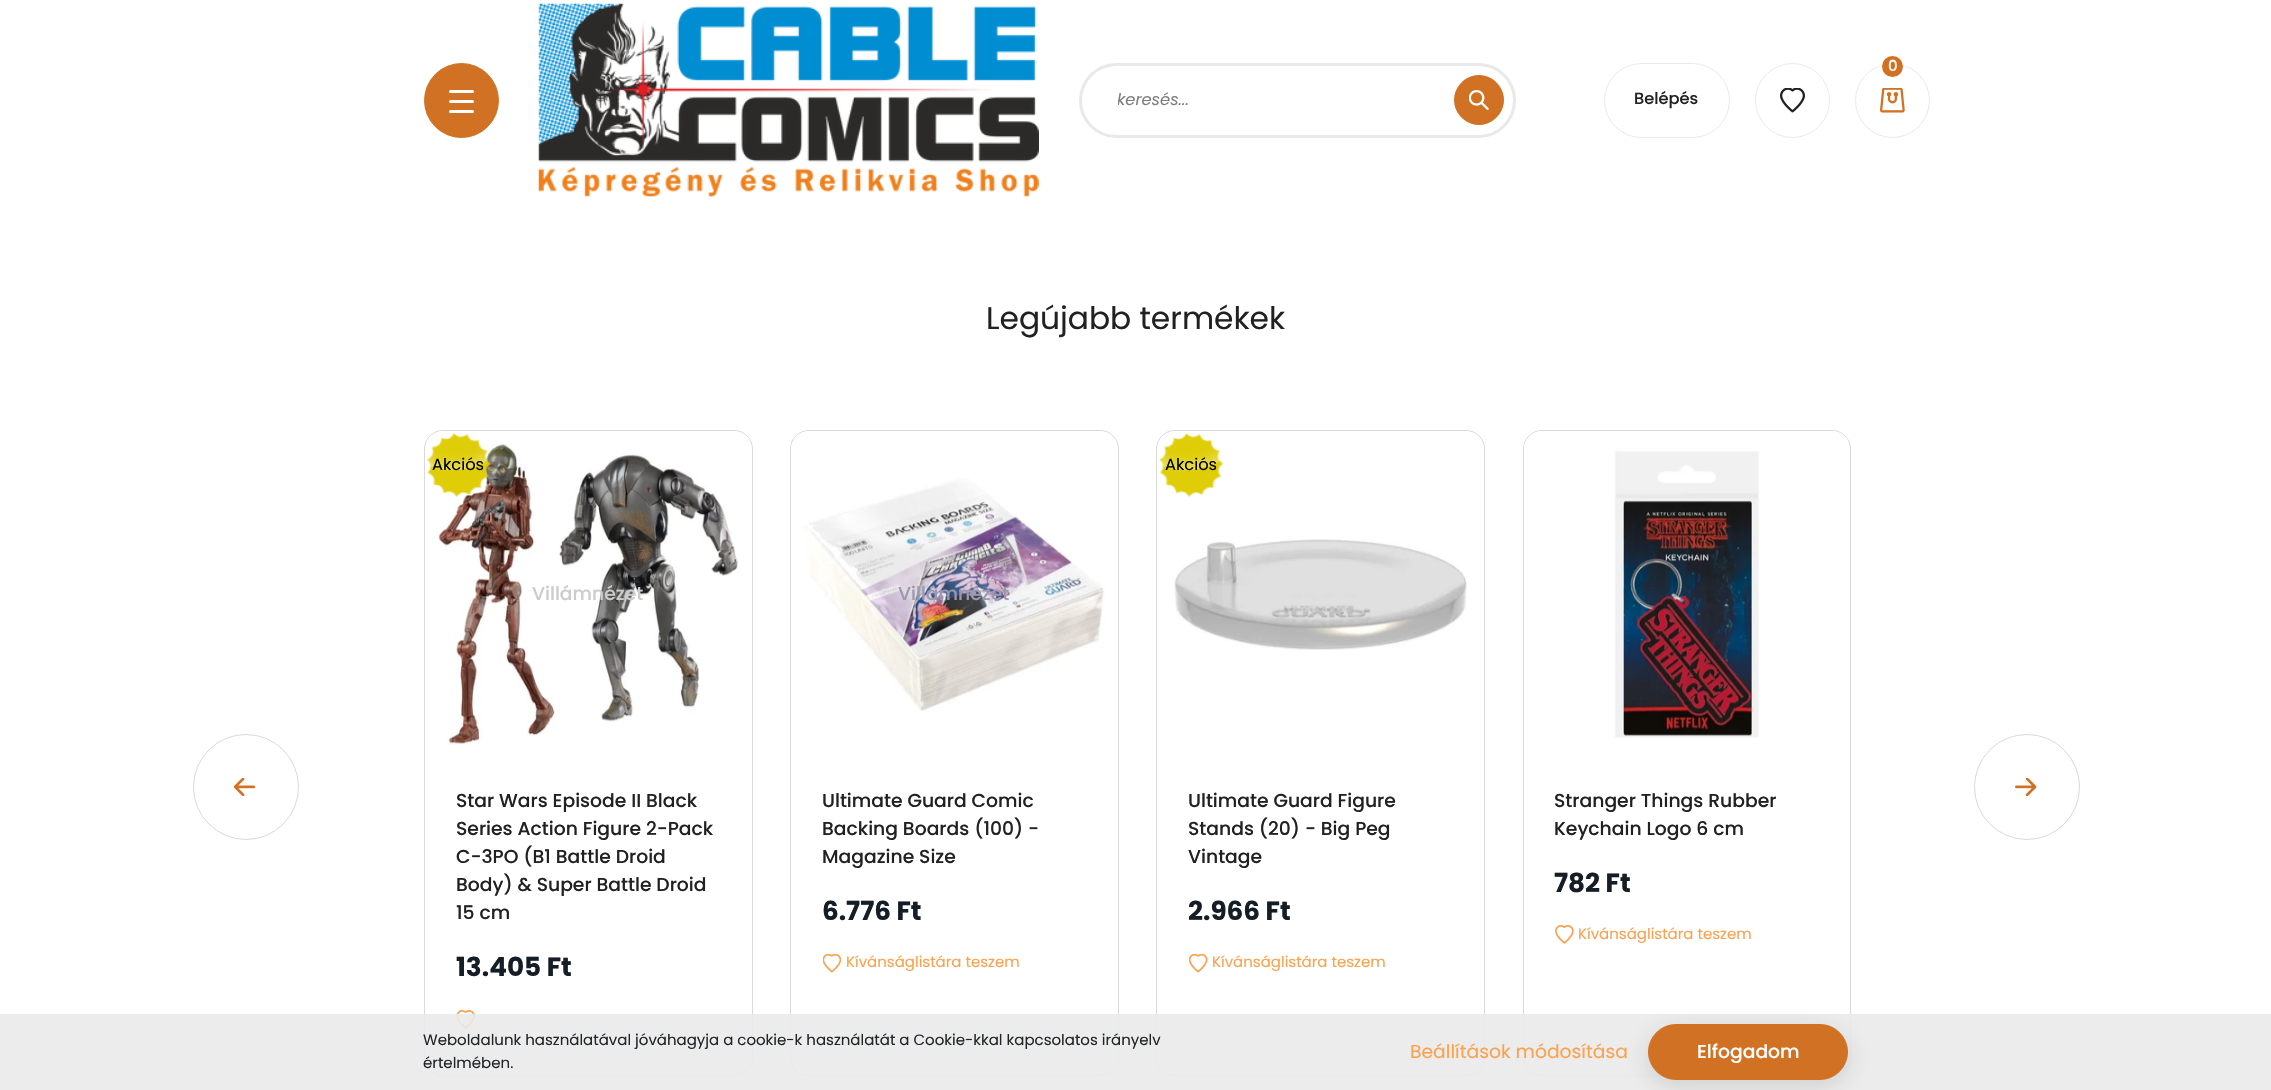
void draw(SkCanvas* canvas) {
	SkPaint paint;
	paint.setAntiAlias(true);
	auto svgPath = [&](const char* data, bool evenOdd = false) {
		SkPath result = *SkParsePath::FromSVGString(data);
		if (evenOdd) result.setFillType(SkPathFillType::kEvenOdd);
		return result;
	};
	canvas->clear(0xffffffff);
	paint.setColor(0xffd17123);
	canvas->drawCircle(461.5, 100.5, 37, paint);
	paint.setStroke(true);
	paint.setStrokeWidth(1);
	canvas->drawCircle(461.5, 100.5, 37, paint);
	paint.setStroke(false);
	paint.setColor(0xffffffff);
	canvas->drawRoundRect(SkRect::MakeXYWH(449, 90, 25, 3), 1.5, 1.5, paint);
	canvas->drawRoundRect(SkRect::MakeXYWH(449, 100, 25, 3), 1.5, 1.5, paint);
	canvas->drawRoundRect(SkRect::MakeXYWH(449, 110, 25, 3), 1.5, 1.5, paint);
	canvas->drawImageRect(SkImages::DeferredFromEncodedData(SkData::MakeFromFileName("img1.png")), SkRect::MakeXYWH(538, 3, 501, 194), SkSamplingOptions());
	paint.setStroke(true);
	paint.setStrokeWidth(3);
	paint.setColor(0xffe9e9e9);
	canvas->drawRoundRect(SkRect::MakeXYWH(1080.5, 64.5, 434, 72), 36, 36, paint);
	canvas->save();
	canvas->clipRect(SkRect::MakeXYWH(1118, 88, 327, 25));
	SkFont f1(fontMgr->matchFamilyStyle("Poppins", SkFontStyle::Italic()), 16.25);
	f1.setSubpixel(true);
	paint.setStroke(false);
	paint.setColor(0xff7d7d7d);
	canvas->drawString("keresés...", 1117, 105, f1, paint);
	canvas->restore();
	paint.setColor(0xffd17123);
	canvas->drawCircle(1479, 100, 24.5, paint);
	paint.setStroke(true);
	paint.setStrokeWidth(1);
	canvas->drawCircle(1479, 100, 24.5, paint);
	canvas->drawImageRect(SkImages::DeferredFromEncodedData(SkData::MakeFromFileName("img2.png")), SkRect::MakeXYWH(1469, 90, 20, 20), SkSamplingOptions());
	paint.setColor(0xffeaeaea);
	canvas->drawRoundRect(SkRect::MakeXYWH(1604.5, 63.5, 125, 74), 37, 37, paint);
	SkFont f2(fontMgr->matchFamilyStyle("Poppins", SkFontStyle(500, SkFontStyle::kNormal_Width, SkFontStyle::kUpright_Slant)), 16.25);
	f2.setSubpixel(true);
	paint.setStroke(false);
	paint.setColor(0xff212121);
	canvas->drawString("Belépés", 1634, 104, f2, paint);
	paint.setStroke(true);
	paint.setColor(0xffeaeaea);
	canvas->drawCircle(1792.5, 100.5, 37, paint);
	canvas->drawImageRect(SkImages::DeferredFromEncodedData(SkData::MakeFromFileName("img3.png")), SkRect::MakeXYWH(1780, 88, 25, 25), SkSamplingOptions());
	paint.setColor(0xffe9e9e9);
	canvas->drawCircle(1892.5, 100.5, 37, paint);
	paint.setStroke(false);
	paint.setColor(0xffd17123);
	canvas->drawCircle(1892.5, 66.5, 12, paint);
	paint.setStroke(true);
	paint.setStrokeWidth(3);
	paint.setColor(0xffffffff);
	canvas->drawCircle(1892.5, 66.5, 12, paint);
	SkFont f3(fontMgr->matchFamilyStyle("Poppins", SkFontStyle(500, SkFontStyle::kNormal_Width, SkFontStyle::kUpright_Slant)), 15);
	f3.setSubpixel(true);
	paint.setStroke(false);
	canvas->drawString("0", 1888, 71, f3, paint);
	canvas->drawImageRect(SkImages::DeferredFromEncodedData(SkData::MakeFromFileName("img4.png")), SkRect::MakeXYWH(1880, 88, 25, 25), SkSamplingOptions());
	SkFont f4(fontMgr->matchFamilyStyle("Poppins", SkFontStyle::Normal()), 31.25);
	f4.setSubpixel(true);
	paint.setColor(0xff212121);
	canvas->drawString("Legújabb termékek", 986, 329, f4, paint);
	paint.setStroke(true);
	paint.setStrokeWidth(1);
	paint.setColor(0xffd9d9d9);
	canvas->drawCircle(246, 787, 52.5, paint);
	canvas->drawImageRect(SkImages::DeferredFromEncodedData(SkData::MakeFromFileName("img5.png")), SkRect::MakeXYWH(234, 778, 22, 18), SkSamplingOptions());
	canvas->drawRoundRect(SkRect::MakeXYWH(424.5, 430.5, 328, 645), 18.5, 18.5, paint);
	paint.setStroke(false);
	paint.setColor(0xffffffff);
	canvas->drawPath(svgPath("M444 431H732C742.5 431 751 439.5 751 450V758H425V450C425 439.5 433.5 431 444 431Z"), paint);
	canvas->drawImageRect(SkImages::DeferredFromEncodedData(SkData::MakeFromFileName("img7.png")), SkRect::MakeXYWH(438, 431, 300, 314), SkSamplingOptions());
	canvas->drawImageRect(SkImages::DeferredFromEncodedData(SkData::MakeFromFileName("img6.png")), SkRect::MakeXYWH(426, 433, 65, 64), SkSamplingOptions());
	SkFont f5(fontMgr->matchFamilyStyle("Poppins", SkFontStyle::Normal()), 16.25);
	f5.setSubpixel(true);
	paint.setColor(0xff000000);
	canvas->drawString("Akciós", 432, 470, f5, paint);
	SkFont f6(fontMgr->matchFamilyStyle("Poppins", SkFontStyle(500, SkFontStyle::kNormal_Width, SkFontStyle::kUpright_Slant)), 18.75);
	f6.setSubpixel(true);
	paint.setColor(0xffcccccc);
	canvas->drawString("Villámnézet", 532, 600, f6, paint);
	paint.setColor(0xff212121);
	canvas->drawString("Star Wars Episode II Black", 456, 807, f6, paint);
	canvas->drawString("Series Action Figure 2-Pack", 456, 835, f6, paint);
	canvas->drawString("C-3PO (B1 Battle Droid", 456, 863, f6, paint);
	canvas->drawString("Body) & Super Battle Droid", 456, 891, f6, paint);
	canvas->drawString("15 cm", 456, 919, f6, paint);
	SkFont f7(fontMgr->matchFamilyStyle("Poppins", SkFontStyle::Bold()), 26.25);
	f7.setSubpixel(true);
	paint.setColor(0xff151e26);
	canvas->drawString("13.405 Ft", 456, 976, f7, paint);
	canvas->drawImageRect(SkImages::DeferredFromEncodedData(SkData::MakeFromFileName("img8.png")), SkRect::MakeXYWH(456, 1010, 19, 19), SkSamplingOptions());
	paint.setStroke(true);
	paint.setColor(0xffd9d9d9);
	canvas->drawRoundRect(SkRect::MakeXYWH(790.5, 430.5, 328, 645), 18.5, 18.5, paint);
	paint.setStroke(false);
	paint.setColor(0xffffffff);
	canvas->drawPath(svgPath("M810 431H1099C1109.5 431 1118 439.5 1118 450V758H791V450C791 439.5 799.5 431 810 431Z"), paint);
	canvas->drawImageRect(SkImages::DeferredFromEncodedData(SkData::MakeFromFileName("img9.png")), SkRect::MakeXYWH(802, 478, 303, 234), SkSamplingOptions());
	paint.setColor(0xff9b99af);
	canvas->drawString("Villámnézet", 898, 600, f6, paint);
	paint.setColor(0xff212121);
	canvas->drawString("Ultimate Guard Comic", 822, 807, f6, paint);
	canvas->drawString("Backing Boards (100) -", 822, 835, f6, paint);
	canvas->drawString("Magazine Size", 822, 863, f6, paint);
	paint.setColor(0xff151e26);
	canvas->drawString("6.776 Ft", 822, 920, f7, paint);
	canvas->drawImageRect(SkImages::DeferredFromEncodedData(SkData::MakeFromFileName("img10.png")), SkRect::MakeXYWH(823, 954, 18, 19), SkSamplingOptions());
	SkFont f8(fontMgr->matchFamilyStyle("Poppins", SkFontStyle::Normal()), 15);
	f8.setSubpixel(true);
	paint.setColor(0xfffca14d);
	canvas->drawString("Kívánságlistára teszem", 846, 967, f8, paint);
	paint.setStroke(true);
	paint.setColor(0xffd9d9d9);
	canvas->drawRoundRect(SkRect::MakeXYWH(1156.5, 430.5, 328, 645), 18.5, 18.5, paint);
	paint.setStroke(false);
	paint.setColor(0xffffffff);
	canvas->drawPath(svgPath("M1177 431H1465C1475.5 431 1484 439.5 1484 450V758H1158V450C1158 439.5 1166.5 431 1177 431Z"), paint);
	canvas->drawImageRect(SkImages::DeferredFromEncodedData(SkData::MakeFromFileName("img11.png")), SkRect::MakeXYWH(1171, 431, 296, 219), SkSamplingOptions());
	canvas->drawImageRect(SkImages::DeferredFromEncodedData(SkData::MakeFromFileName("img12.png")), SkRect::MakeXYWH(1159, 433, 65, 64), SkSamplingOptions());
	paint.setColor(0xff000000);
	canvas->drawString("Akciós", 1165, 470, f5, paint);
	paint.setColor(0xff212121);
	canvas->drawString("Ultimate Guard Figure", 1188, 807, f6, paint);
	canvas->drawString("Stands (20) - Big Peg", 1188, 835, f6, paint);
	canvas->drawString("Vintage", 1188, 863, f6, paint);
	paint.setColor(0xff151e26);
	canvas->drawString("2.966 Ft", 1188, 920, f7, paint);
	canvas->drawImageRect(SkImages::DeferredFromEncodedData(SkData::MakeFromFileName("img13.png")), SkRect::MakeXYWH(1189, 954, 19, 19), SkSamplingOptions());
	paint.setColor(0xfffca14d);
	canvas->drawString("Kívánságlistára teszem", 1212, 967, f8, paint);
	paint.setStroke(true);
	paint.setColor(0xffd9d9d9);
	canvas->drawRoundRect(SkRect::MakeXYWH(1523.5, 430.5, 327, 645), 18.5, 18.5, paint);
	paint.setStroke(false);
	paint.setColor(0xffffffff);
	canvas->drawPath(svgPath("M1543 431H1831C1841.5 431 1850 439.5 1850 450V758H1524V450C1524 439.5 1532.5 431 1543 431Z"), paint);
	canvas->drawImageRect(SkImages::DeferredFromEncodedData(SkData::MakeFromFileName("img14.png")), SkRect::MakeXYWH(1524, 431, 312, 307), SkSamplingOptions());
	paint.setColor(0xff212121);
	canvas->drawString("Stranger Things Rubber", 1554, 807, f6, paint);
	canvas->drawString("Keychain Logo 6 cm", 1554, 835, f6, paint);
	paint.setColor(0xff151e26);
	canvas->drawString("782 Ft", 1554, 892, f7, paint);
	canvas->drawImageRect(SkImages::DeferredFromEncodedData(SkData::MakeFromFileName("img15.png")), SkRect::MakeXYWH(1555, 925, 19, 19), SkSamplingOptions());
	paint.setColor(0xfffca14d);
	canvas->drawString("Kívánságlistára teszem", 1578, 939, f8, paint);
	paint.setStroke(true);
	paint.setColor(0xffd9d9d9);
	canvas->drawCircle(2027, 787, 52.5, paint);
	canvas->drawImageRect(SkImages::DeferredFromEncodedData(SkData::MakeFromFileName("img16.png")), SkRect::MakeXYWH(2015, 778, 22, 18), SkSamplingOptions());
	paint.setStroke(false);
	paint.setColor(0xe6eaeaea);
	canvas->drawRect(SkRect::MakeXYWH(0, 1014, 2271, 76), paint);
	paint.setColor(0xff212529);
	canvas->drawString("Weboldalunk használatával jóváhagyja a cookie-k használatát a Cookie-kkal kapcsolatos irányelv", 423, 1045, f8, paint);
	canvas->drawString("értelmében.", 423, 1068, f8, paint);
	SkFont f9(fontMgr->matchFamilyStyle("Poppins", SkFontStyle::Normal()), 18.75);
	f9.setSubpixel(true);
	paint.setColor(0xfffca14d);
	canvas->drawString("Beállítások módosítása", 1410, 1058, f9, paint);
	paint.setColor(0x2620202c);
	paint.setMaskFilter(SkMaskFilter::MakeBlur(kNormal_SkBlurStyle, 12.5));
	canvas->drawRoundRect(SkRect::MakeXYWH(1648, 1030, 200, 56), 28, 28, paint);
	paint.setMaskFilter(nullptr);
	paint.setColor(0xffd17123);
	canvas->drawRoundRect(SkRect::MakeXYWH(1648.5, 1024.5, 199, 55), 27.5, 27.5, paint);
	paint.setStroke(true);
	canvas->drawRoundRect(SkRect::MakeXYWH(1648.5, 1024.5, 199, 55), 27.5, 27.5, paint);
	paint.setStroke(false);
	paint.setColor(0xffffffff);
	canvas->drawString("Elfogadom", 1697, 1058, f6, paint);
}
